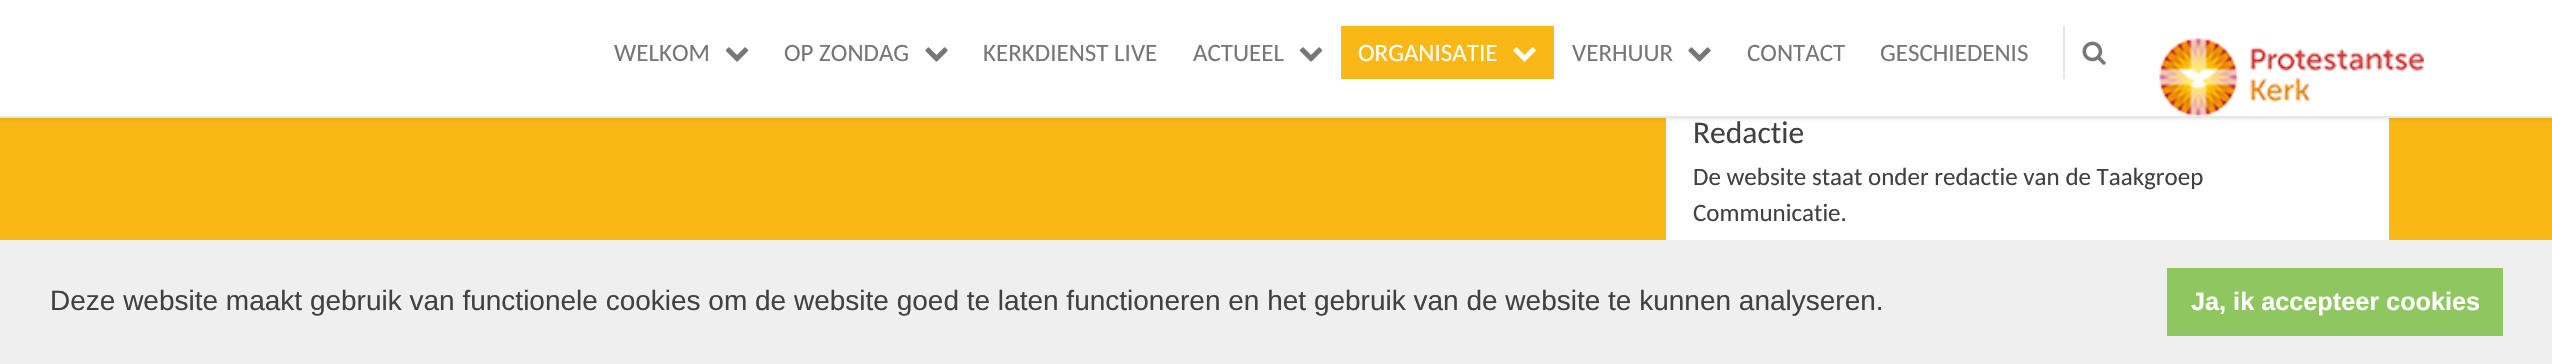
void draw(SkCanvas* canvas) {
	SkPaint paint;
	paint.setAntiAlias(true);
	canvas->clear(0xfffab816);
	paint.setColor(0xffffffff);
	canvas->drawRect(SkRect::MakeXYWH(1666, 118, 723, 122), paint);
	paint.setColor(0x38000000);
	paint.setMaskFilter(SkMaskFilter::MakeBlur(kNormal_SkBlurStyle, 2.5));
	canvas->drawRect(SkRect::MakeXYWH(0, 0, 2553, 117), paint);
	paint.setMaskFilter(nullptr);
	paint.setColor(0xffffffff);
	canvas->drawRect(SkRect::MakeXYWH(0, 0, 2552, 116), paint);
	paint.setColor(0xffe7e7e7);
	canvas->drawRect(SkRect::MakeXYWH(0, 116, 2552, 2), paint);
	SkFont f1(fontMgr->matchFamilyStyle("Carlito", SkFontStyle::Normal()), 25);
	f1.setSubpixel(true);
	paint.setColor(0xff777777);
	canvas->drawString("WELKOM", 614, 61, f1, paint);
	canvas->drawImageRect(SkImages::DeferredFromEncodedData(SkData::MakeFromFileName("img1.png")), SkRect::MakeXYWH(725, 47, 24, 15), SkSamplingOptions());
	canvas->drawString("OP ZONDAG", 784, 61, f1, paint);
	canvas->drawImageRect(SkImages::DeferredFromEncodedData(SkData::MakeFromFileName("img2.png")), SkRect::MakeXYWH(925, 47, 23, 15), SkSamplingOptions());
	canvas->drawString("KERKDIENST LIVE", 983, 61, f1, paint);
	canvas->drawString("ACTUEEL", 1193, 61, f1, paint);
	canvas->drawImageRect(SkImages::DeferredFromEncodedData(SkData::MakeFromFileName("img1.png")), SkRect::MakeXYWH(1299, 47, 24, 15), SkSamplingOptions());
	paint.setColor(0xfffab816);
	canvas->drawRect(SkRect::MakeXYWH(1341, 26, 213, 53), paint);
	paint.setColor(0xffffffff);
	canvas->drawString("ORGANISATIE", 1358, 61, f1, paint);
	canvas->drawImageRect(SkImages::DeferredFromEncodedData(SkData::MakeFromFileName("img3.png")), SkRect::MakeXYWH(1513, 47, 23, 15), SkSamplingOptions());
	paint.setColor(0xff777777);
	canvas->drawString("VERHUUR", 1572, 61, f1, paint);
	canvas->drawImageRect(SkImages::DeferredFromEncodedData(SkData::MakeFromFileName("img2.png")), SkRect::MakeXYWH(1688, 47, 23, 15), SkSamplingOptions());
	canvas->drawString("CONTACT", 1747, 61, f1, paint);
	canvas->drawString("GESCHIEDENIS", 1880, 61, f1, paint);
	paint.setColor(0xffe7e7e7);
	canvas->drawRect(SkRect::MakeXYWH(2063, 26, 2, 53), paint);
	canvas->drawImageRect(SkImages::DeferredFromEncodedData(SkData::MakeFromFileName("img4.png")), SkRect::MakeXYWH(2082, 41, 24, 24), SkSamplingOptions());
	canvas->drawImageRect(SkImages::DeferredFromEncodedData(SkData::MakeFromFileName("img5.png")), SkRect::MakeXYWH(2159, 38, 265, 78), SkSamplingOptions());
	SkFont f2(fontMgr->matchFamilyStyle("Carlito", SkFontStyle::Normal()), 31.5);
	f2.setSubpixel(true);
	paint.setColor(0xff414141);
	canvas->drawString("Redactie", 1693, 143, f2, paint);
	canvas->drawString("De website staat onder redactie van de Taakgroep", 1693, 185, f1, paint);
	canvas->drawString("Communicatie.", 1693, 221, f1, paint);
	paint.setColor(0xffefefef);
	canvas->drawRect(SkRect::MakeXYWH(0, 240, 2552, 124), paint);
	SkFont f3(fontMgr->matchFamilyStyle("Liberation Sans", SkFontStyle::Normal()), 28);
	f3.setSubpixel(true);
	paint.setColor(0xff414141);
	canvas->drawString("Deze website maakt gebruik van functionele cookies om de website goed te laten functioneren en het gebruik van de website te kunnen analyseren.", 50, 310, f3, paint);
	paint.setColor(0xff8ec760);
	canvas->drawRect(SkRect::MakeXYWH(2167, 268, 336, 68), paint);
	SkFont f4(fontMgr->matchFamilyStyle("Liberation Sans", SkFontStyle::Bold()), 25.25);
	f4.setSubpixel(true);
	paint.setColor(0xffffffff);
	canvas->drawString("Ja, ik accepteer cookies", 2191, 310, f4, paint);
}
